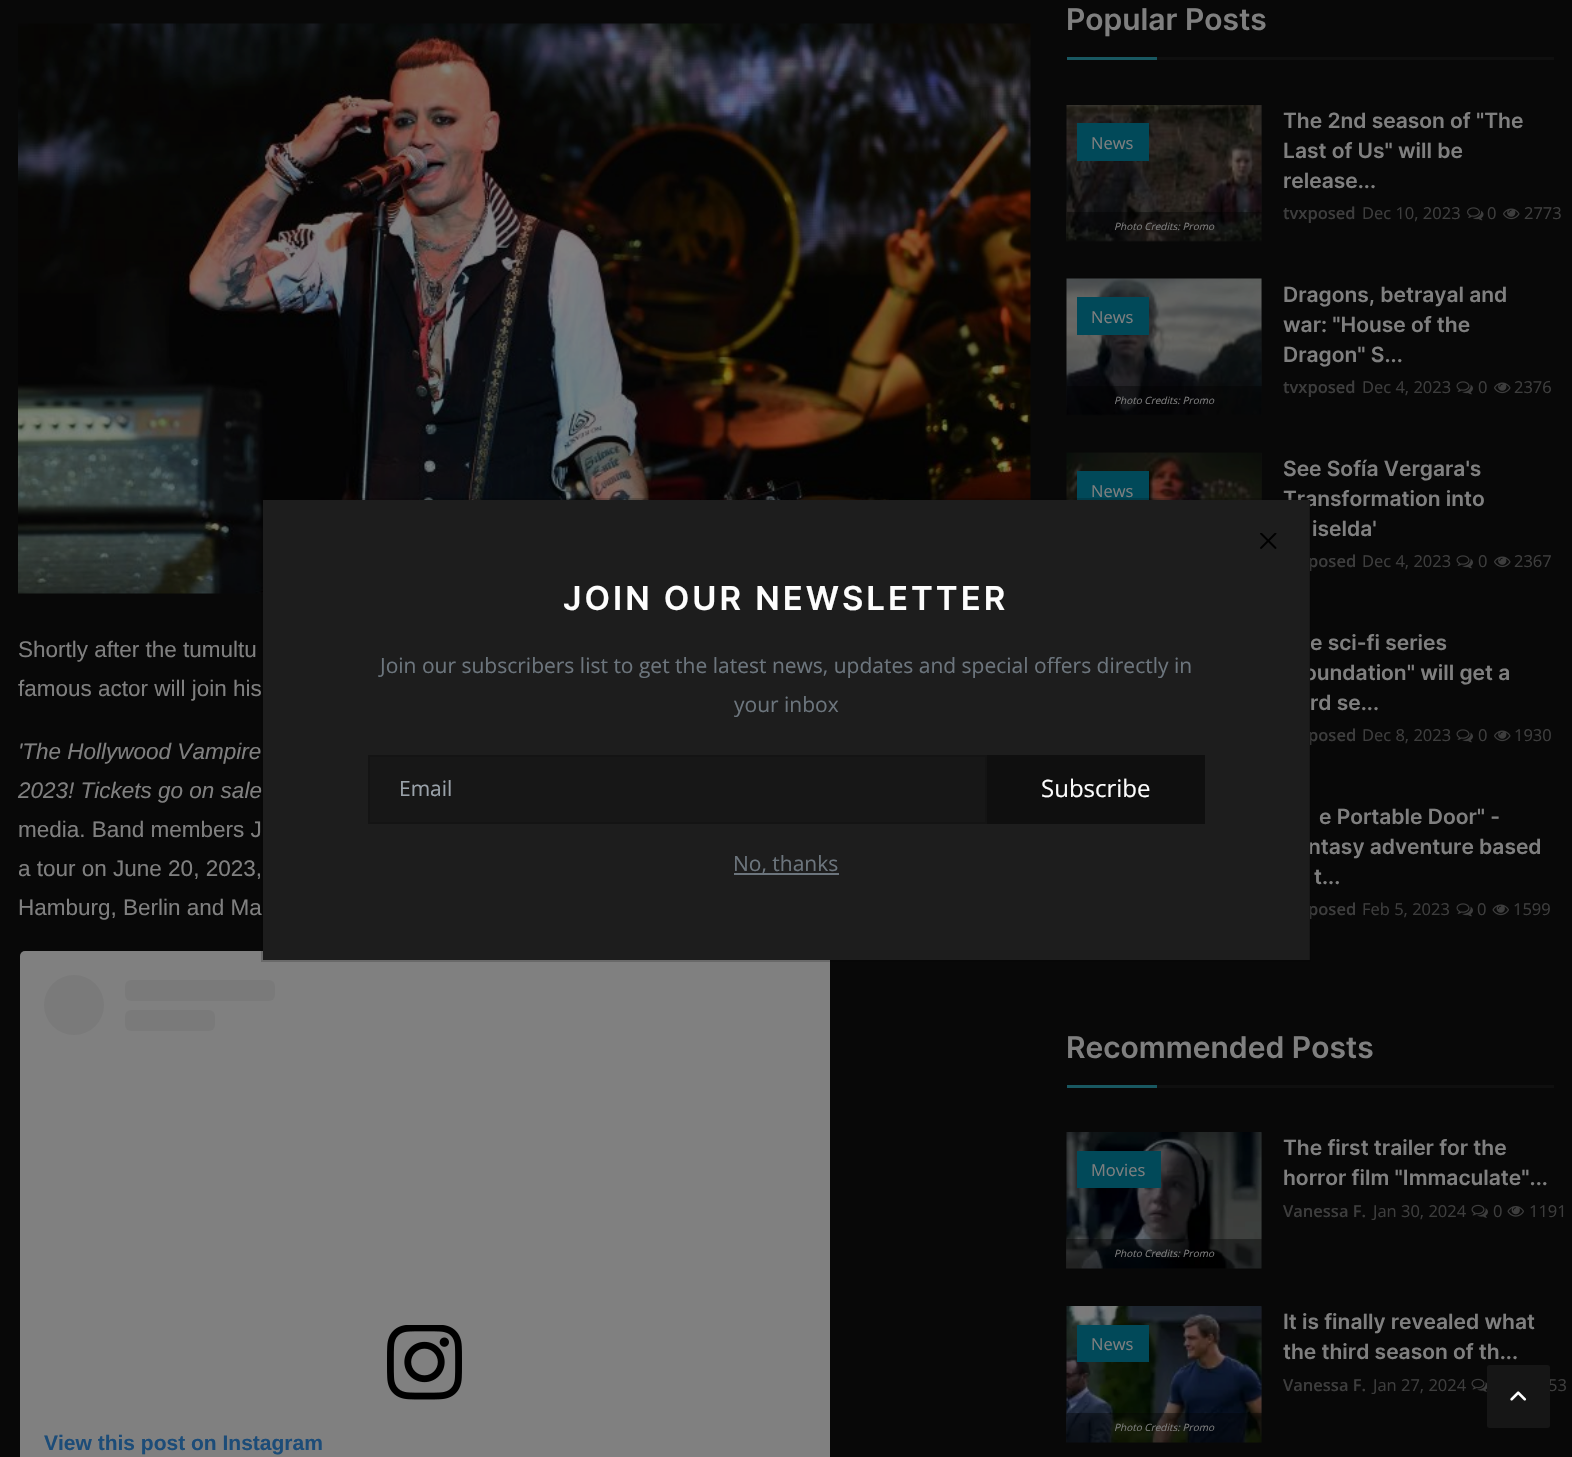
void draw(SkCanvas* canvas) {
	SkPaint paint;
	paint.setAntiAlias(true);
	auto spacedText = [&](const char* s, float x, float y, const SkFont& font, const SkPaint& ink, float letter, float word) {
		std::vector<SkGlyphID> glyphs(font.countText(s, strlen(s), SkTextEncoding::kUTF8));
		std::vector<float> xs(glyphs.size());
		font.textToGlyphs(s, strlen(s), SkTextEncoding::kUTF8, glyphs);
		font.getXPos(glyphs, xs, x);
		float extra = 0;
		for (size_t i = 0; i < glyphs.size(); i++) {
			xs[i] += extra;
			extra += letter + word * (glyphs[i] == font.unicharToGlyph(' '));
		}
		canvas->drawTextBlob(SkTextBlob::MakeFromPosHGlyphs(glyphs, xs, y, font), 0, 0, ink);
	};
	canvas->clear(0xff080808);
	canvas->drawImageRect(SkImages::DeferredFromEncodedData(SkData::MakeFromFileName("img1.png")), SkRect::MakeXYWH(18, 23, 1013, 571), SkSamplingOptions());
	SkFont f1(fontMgr->matchFamilyStyle("Liberation Sans", SkFontStyle::Normal()), 22.5);
	f1.setSubpixel(true);
	paint.setColor(0xff7f7f7f);
	canvas->drawString("Shortly after the tumultu", 18, 657, f1, paint);
	canvas->drawString("famous actor will join his", 18, 696, f1, paint);
	SkFont f2(fontMgr->matchFamilyStyle("Liberation Sans", SkFontStyle::Italic()), 22.5);
	f2.setSubpixel(true);
	canvas->drawString("'The Hollywood Vampire", 18, 759, f2, paint);
	canvas->drawString("2023! Tickets go on sale", 18, 798, f2, paint);
	canvas->drawString("media. Band members J", 18, 837, f1, paint);
	canvas->drawString("a tour on June 20, 2023,", 18, 876, f1, paint);
	canvas->drawString("Hamburg, Berlin and Ma", 18, 915, f1, paint);
	paint.setColor(0xff808080);
	canvas->drawRoundRect(SkRect::MakeXYWH(20, 951, 810, 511), 5, 5, paint);
	paint.setColor(0xff7a7a7a);
	canvas->drawCircle(74, 1005, 30, paint);
	canvas->drawRoundRect(SkRect::MakeXYWH(125, 980, 150, 21), 6, 6, paint);
	canvas->drawRoundRect(SkRect::MakeXYWH(125, 1010, 90, 21), 6, 6, paint);
	canvas->drawImageRect(SkImages::DeferredFromEncodedData(SkData::MakeFromFileName("img2.png")), SkRect::MakeXYWH(387, 1325, 75, 75), SkSamplingOptions());
	SkFont f3(fontMgr->matchFamilyStyle("Liberation Sans", SkFontStyle::Bold()), 21);
	f3.setSubpixel(true);
	paint.setColor(0xff1c4c78);
	canvas->drawString("View this post on Instagram", 44, 1450, f3, paint);
	paint.setColor(0xff0f0f0f);
	canvas->drawRect(SkRect::MakeXYWH(1157, 57, 397, 3), paint);
	SkFont f4(fontMgr->matchFamilyStyle("Inter", SkFontStyle(600, SkFontStyle::kNormal_Width, SkFontStyle::kUpright_Slant)), 30);
	f4.setSubpixel(true);
	paint.setColor(0xff7f7f7f);
	canvas->drawString("Popular Posts", 1066, 30, f4, paint);
	paint.setColor(0xff195861);
	canvas->drawRect(SkRect::MakeXYWH(1067, 57, 90, 3), paint);
	paint.setColor(0xff0d0d0d);
	canvas->drawRect(SkRect::MakeXYWH(1067, 105, 195, 137), paint);
	canvas->drawImageRect(SkImages::DeferredFromEncodedData(SkData::MakeFromFileName("img3.png")), SkRect::MakeXYWH(1066, 105, 196, 137), SkSamplingOptions());
	paint.setColor(0xff014959);
	canvas->drawRect(SkRect::MakeXYWH(1077, 123, 72, 38), paint);
	SkFont f5(fontMgr->matchFamilyStyle("Open Sans", SkFontStyle::Normal()), 16.5);
	f5.setSubpixel(true);
	paint.setColor(0xff7f7f7f);
	canvas->drawString("News", 1091, 149, f5, paint);
	paint.setColor(0x66000000);
	canvas->drawRect(SkRect::MakeXYWH(1067, 212, 195, 30), paint);
	SkFont f6(fontMgr->matchFamilyStyle("Open Sans", SkFontStyle::Italic()), 10);
	f6.setSubpixel(true);
	paint.setColor(0xff7f7f7f);
	canvas->drawString("Photo Credits: Promo", 1114, 230, f6, paint);
	SkFont f7(fontMgr->matchFamilyStyle("Inter", SkFontStyle(600, SkFontStyle::kNormal_Width, SkFontStyle::kUpright_Slant)), 21);
	f7.setSubpixel(true);
	canvas->drawString("The 2nd season of \"The", 1283, 128, f7, paint);
	canvas->drawString("Last of Us\" will be", 1283, 158, f7, paint);
	canvas->drawString("release...", 1283, 188, f7, paint);
	SkFont f8(fontMgr->matchFamilyStyle("Open Sans", SkFontStyle(600, SkFontStyle::kNormal_Width, SkFontStyle::kUpright_Slant)), 16.5);
	f8.setSubpixel(true);
	paint.setColor(0xff3d3d3d);
	canvas->drawString("tvxposed", 1283, 219, f8, paint);
	canvas->drawString("Dec 10, 2023", 1362, 219, f5, paint);
	canvas->drawImageRect(SkImages::DeferredFromEncodedData(SkData::MakeFromFileName("img4.png")), SkRect::MakeXYWH(1467, 207, 17, 14), SkSamplingOptions());
	canvas->drawString("0", 1487, 219, f5, paint);
	canvas->drawImageRect(SkImages::DeferredFromEncodedData(SkData::MakeFromFileName("img5.png")), SkRect::MakeXYWH(1503, 208, 17, 12), SkSamplingOptions());
	canvas->drawString("2773", 1524, 219, f5, paint);
	paint.setColor(0xff0d0d0d);
	canvas->drawRect(SkRect::MakeXYWH(1067, 279, 195, 137), paint);
	canvas->drawImageRect(SkImages::DeferredFromEncodedData(SkData::MakeFromFileName("img6.png")), SkRect::MakeXYWH(1066, 278, 196, 138), SkSamplingOptions());
	paint.setColor(0xff014959);
	canvas->drawRect(SkRect::MakeXYWH(1077, 297, 72, 38), paint);
	paint.setColor(0xff7f7f7f);
	canvas->drawString("News", 1091, 323, f5, paint);
	paint.setColor(0x66000000);
	canvas->drawRect(SkRect::MakeXYWH(1067, 386, 195, 30), paint);
	paint.setColor(0xff7f7f7f);
	canvas->drawString("Photo Credits: Promo", 1114, 404, f6, paint);
	canvas->drawString("Dragons, betrayal and", 1283, 302, f7, paint);
	canvas->drawString("war: \"House of the", 1283, 332, f7, paint);
	canvas->drawString("Dragon\" S...", 1283, 362, f7, paint);
	paint.setColor(0xff3d3d3d);
	canvas->drawString("tvxposed", 1283, 393, f8, paint);
	canvas->drawString("Dec 4, 2023", 1362, 393, f5, paint);
	canvas->drawImageRect(SkImages::DeferredFromEncodedData(SkData::MakeFromFileName("img7.png")), SkRect::MakeXYWH(1456, 381, 17, 14), SkSamplingOptions());
	canvas->drawString("0", 1478, 393, f5, paint);
	canvas->drawImageRect(SkImages::DeferredFromEncodedData(SkData::MakeFromFileName("img5.png")), SkRect::MakeXYWH(1494, 382, 17, 12), SkSamplingOptions());
	canvas->drawString("2376", 1514, 393, f5, paint);
	paint.setColor(0xff0d0d0d);
	canvas->drawRect(SkRect::MakeXYWH(1261, 453, 1, 47), paint);
	canvas->drawImageRect(SkImages::DeferredFromEncodedData(SkData::MakeFromFileName("img8.png")), SkRect::MakeXYWH(1066, 452, 196, 48), SkSamplingOptions());
	paint.setColor(0xff014959);
	canvas->drawRect(SkRect::MakeXYWH(1077, 471, 72, 29), paint);
	paint.setColor(0xff7f7f7f);
	canvas->drawString("News", 1091, 497, f5, paint);
	canvas->drawString("See Sofía Vergara's", 1283, 476, f7, paint);
	canvas->drawString("Transformation into", 1283, 506, f7, paint);
	canvas->drawString("iselda'", 1312, 536, f7, paint);
	paint.setColor(0xff3d3d3d);
	canvas->drawString("posed", 1308, 567, f8, paint);
	canvas->drawString("Dec 4, 2023", 1362, 567, f5, paint);
	canvas->drawImageRect(SkImages::DeferredFromEncodedData(SkData::MakeFromFileName("img7.png")), SkRect::MakeXYWH(1456, 555, 17, 14), SkSamplingOptions());
	canvas->drawString("0", 1478, 567, f5, paint);
	canvas->drawImageRect(SkImages::DeferredFromEncodedData(SkData::MakeFromFileName("img5.png")), SkRect::MakeXYWH(1494, 556, 17, 12), SkSamplingOptions());
	canvas->drawString("2367", 1514, 567, f5, paint);
	paint.setColor(0xff7f7f7f);
	canvas->drawString("e sci-fi series", 1310, 650, f7, paint);
	canvas->drawString("oundation\" will get a", 1304, 680, f7, paint);
	canvas->drawString("rd se...", 1310, 710, f7, paint);
	paint.setColor(0xff3d3d3d);
	canvas->drawString("posed", 1308, 741, f8, paint);
	canvas->drawString("Dec 8, 2023", 1362, 741, f5, paint);
	canvas->drawImageRect(SkImages::DeferredFromEncodedData(SkData::MakeFromFileName("img7.png")), SkRect::MakeXYWH(1456, 729, 17, 14), SkSamplingOptions());
	canvas->drawString("0", 1478, 741, f5, paint);
	canvas->drawImageRect(SkImages::DeferredFromEncodedData(SkData::MakeFromFileName("img5.png")), SkRect::MakeXYWH(1494, 730, 17, 12), SkSamplingOptions());
	canvas->drawString("1930", 1514, 741, f5, paint);
	paint.setColor(0xff7f7f7f);
	canvas->drawString("e Portable Door\" -", 1319, 824, f7, paint);
	canvas->drawString("ntasy adventure based", 1308, 854, f7, paint);
	canvas->drawString("t...", 1314, 884, f7, paint);
	paint.setColor(0xff3d3d3d);
	canvas->drawString("posed", 1308, 915, f8, paint);
	canvas->drawString("Feb 5, 2023", 1362, 915, f5, paint);
	canvas->drawImageRect(SkImages::DeferredFromEncodedData(SkData::MakeFromFileName("img7.png")), SkRect::MakeXYWH(1456, 903, 17, 14), SkSamplingOptions());
	canvas->drawString("0", 1477, 915, f5, paint);
	canvas->drawImageRect(SkImages::DeferredFromEncodedData(SkData::MakeFromFileName("img9.png")), SkRect::MakeXYWH(1492, 904, 17, 12), SkSamplingOptions());
	canvas->drawString("1599", 1513, 915, f5, paint);
	paint.setColor(0xff0f0f0f);
	canvas->drawRect(SkRect::MakeXYWH(1157, 1085, 397, 3), paint);
	paint.setColor(0xff7f7f7f);
	canvas->drawString("Recommended Posts", 1066, 1058, f4, paint);
	paint.setColor(0xff195861);
	canvas->drawRect(SkRect::MakeXYWH(1067, 1085, 90, 3), paint);
	paint.setColor(0xff0d0d0d);
	canvas->drawRect(SkRect::MakeXYWH(1067, 1133, 195, 136), paint);
	canvas->drawImageRect(SkImages::DeferredFromEncodedData(SkData::MakeFromFileName("img10.png")), SkRect::MakeXYWH(1066, 1132, 196, 137), SkSamplingOptions());
	paint.setColor(0xff014959);
	canvas->drawRect(SkRect::MakeXYWH(1077, 1151, 84, 37), paint);
	paint.setColor(0xff7f7f7f);
	canvas->drawString("Movies", 1091, 1176, f5, paint);
	paint.setColor(0x66000000);
	canvas->drawRect(SkRect::MakeXYWH(1067, 1239, 195, 30), paint);
	paint.setColor(0xff7f7f7f);
	canvas->drawString("Photo Credits: Promo", 1114, 1257, f6, paint);
	canvas->drawString("The first trailer for the", 1283, 1155, f7, paint);
	canvas->drawString("horror film \"Immaculate\"...", 1283, 1185, f7, paint);
	paint.setColor(0xff3d3d3d);
	canvas->drawString("Vanessa F.", 1283, 1217, f8, paint);
	canvas->drawString("Jan 30, 2024", 1373, 1217, f5, paint);
	canvas->drawImageRect(SkImages::DeferredFromEncodedData(SkData::MakeFromFileName("img11.png")), SkRect::MakeXYWH(1471, 1204, 17, 14), SkSamplingOptions());
	canvas->drawString("0", 1493, 1217, f5, paint);
	canvas->drawImageRect(SkImages::DeferredFromEncodedData(SkData::MakeFromFileName("img12.png")), SkRect::MakeXYWH(1507, 1206, 17, 11), SkSamplingOptions());
	canvas->drawString("1191", 1529, 1217, f5, paint);
	paint.setColor(0xff0d0d0d);
	canvas->drawRect(SkRect::MakeXYWH(1067, 1307, 195, 136), paint);
	canvas->drawImageRect(SkImages::DeferredFromEncodedData(SkData::MakeFromFileName("img13.png")), SkRect::MakeXYWH(1066, 1306, 196, 137), SkSamplingOptions());
	paint.setColor(0xff014959);
	canvas->drawRect(SkRect::MakeXYWH(1077, 1325, 72, 37), paint);
	paint.setColor(0xff7f7f7f);
	canvas->drawString("News", 1091, 1350, f5, paint);
	paint.setColor(0x66000000);
	canvas->drawRect(SkRect::MakeXYWH(1067, 1413, 195, 30), paint);
	paint.setColor(0xff7f7f7f);
	canvas->drawString("Photo Credits: Promo", 1114, 1431, f6, paint);
	canvas->drawString("It is finally revealed what", 1283, 1329, f7, paint);
	canvas->drawString("the third season of th...", 1283, 1359, f7, paint);
	paint.setColor(0xff3d3d3d);
	canvas->drawString("Vanessa F.", 1283, 1391, f8, paint);
	canvas->drawString("Jan 27, 2024", 1373, 1391, f5, paint);
	canvas->drawImageRect(SkImages::DeferredFromEncodedData(SkData::MakeFromFileName("img14.png")), SkRect::MakeXYWH(1471, 1378, 16, 14), SkSamplingOptions());
	canvas->drawString("53", 1548, 1391, f5, paint);
	paint.setColor(0xff1d1d1d);
	canvas->drawRect(SkRect::MakeXYWH(263, 500, 1047, 460), paint);
	paint.setStroke(true);
	paint.setStrokeWidth(2);
	paint.setColor(0x2e000000);
	canvas->drawRect(SkRect::MakeXYWH(262, 499, 1048, 462), paint);
	canvas->drawImageRect(SkImages::DeferredFromEncodedData(SkData::MakeFromFileName("img15.png")), SkRect::MakeXYWH(1260, 533, 17, 16), SkSamplingOptions());
	SkFont f9(fontMgr->matchFamilyStyle("Inter", SkFontStyle(600, SkFontStyle::kNormal_Width, SkFontStyle::kUpright_Slant)), 33);
	f9.setSubpixel(true);
	paint.setStroke(false);
	paint.setColor(0xfffdfdfd);
	spacedText("JOIN OUR NEWSLETTER", 563, 610, f9, paint, 3, 0);
	SkFont f10(fontMgr->matchFamilyStyle("Open Sans", SkFontStyle::Normal()), 21);
	f10.setSubpixel(true);
	paint.setColor(0xff6c757d);
	canvas->drawString("Join our subscribers list to get the latest news, updates and special offers directly in", 380, 673, f10, paint);
	canvas->drawString("your inbox", 734, 712, f10, paint);
	paint.setColor(0xff171717);
	canvas->drawRect(SkRect::MakeXYWH(369, 756, 617, 67), paint);
	paint.setStroke(true);
	paint.setColor(0xff141414);
	canvas->drawRect(SkRect::MakeXYWH(369, 756, 617, 67), paint);
	paint.setStroke(false);
	paint.setColor(0xff9aa2aa);
	canvas->drawString("Email", 399, 796, f10, paint);
	paint.setColor(0xff0f0f0f);
	canvas->drawRect(SkRect::MakeXYWH(987, 755, 218, 69), paint);
	SkFont f11(fontMgr->matchFamilyStyle("Open Sans", SkFontStyle::Normal()), 24);
	f11.setSubpixel(true);
	paint.setColor(0xfffdfdfd);
	canvas->drawString("Subscribe", 1041, 797, f11, paint);
	paint.setColor(0xff6c757d);
	canvas->drawRect(SkRect::MakeXYWH(734, 873, 105, 2), paint);
	canvas->drawString("No, thanks", 733, 871, f10, paint);
	paint.setColor(0xff161616);
	canvas->drawRoundRect(SkRect::MakeXYWH(1487, 1365, 63, 63), 3, 3, paint);
	canvas->drawImageRect(SkImages::DeferredFromEncodedData(SkData::MakeFromFileName("img16.png")), SkRect::MakeXYWH(1510, 1391, 17, 10), SkSamplingOptions());
}
